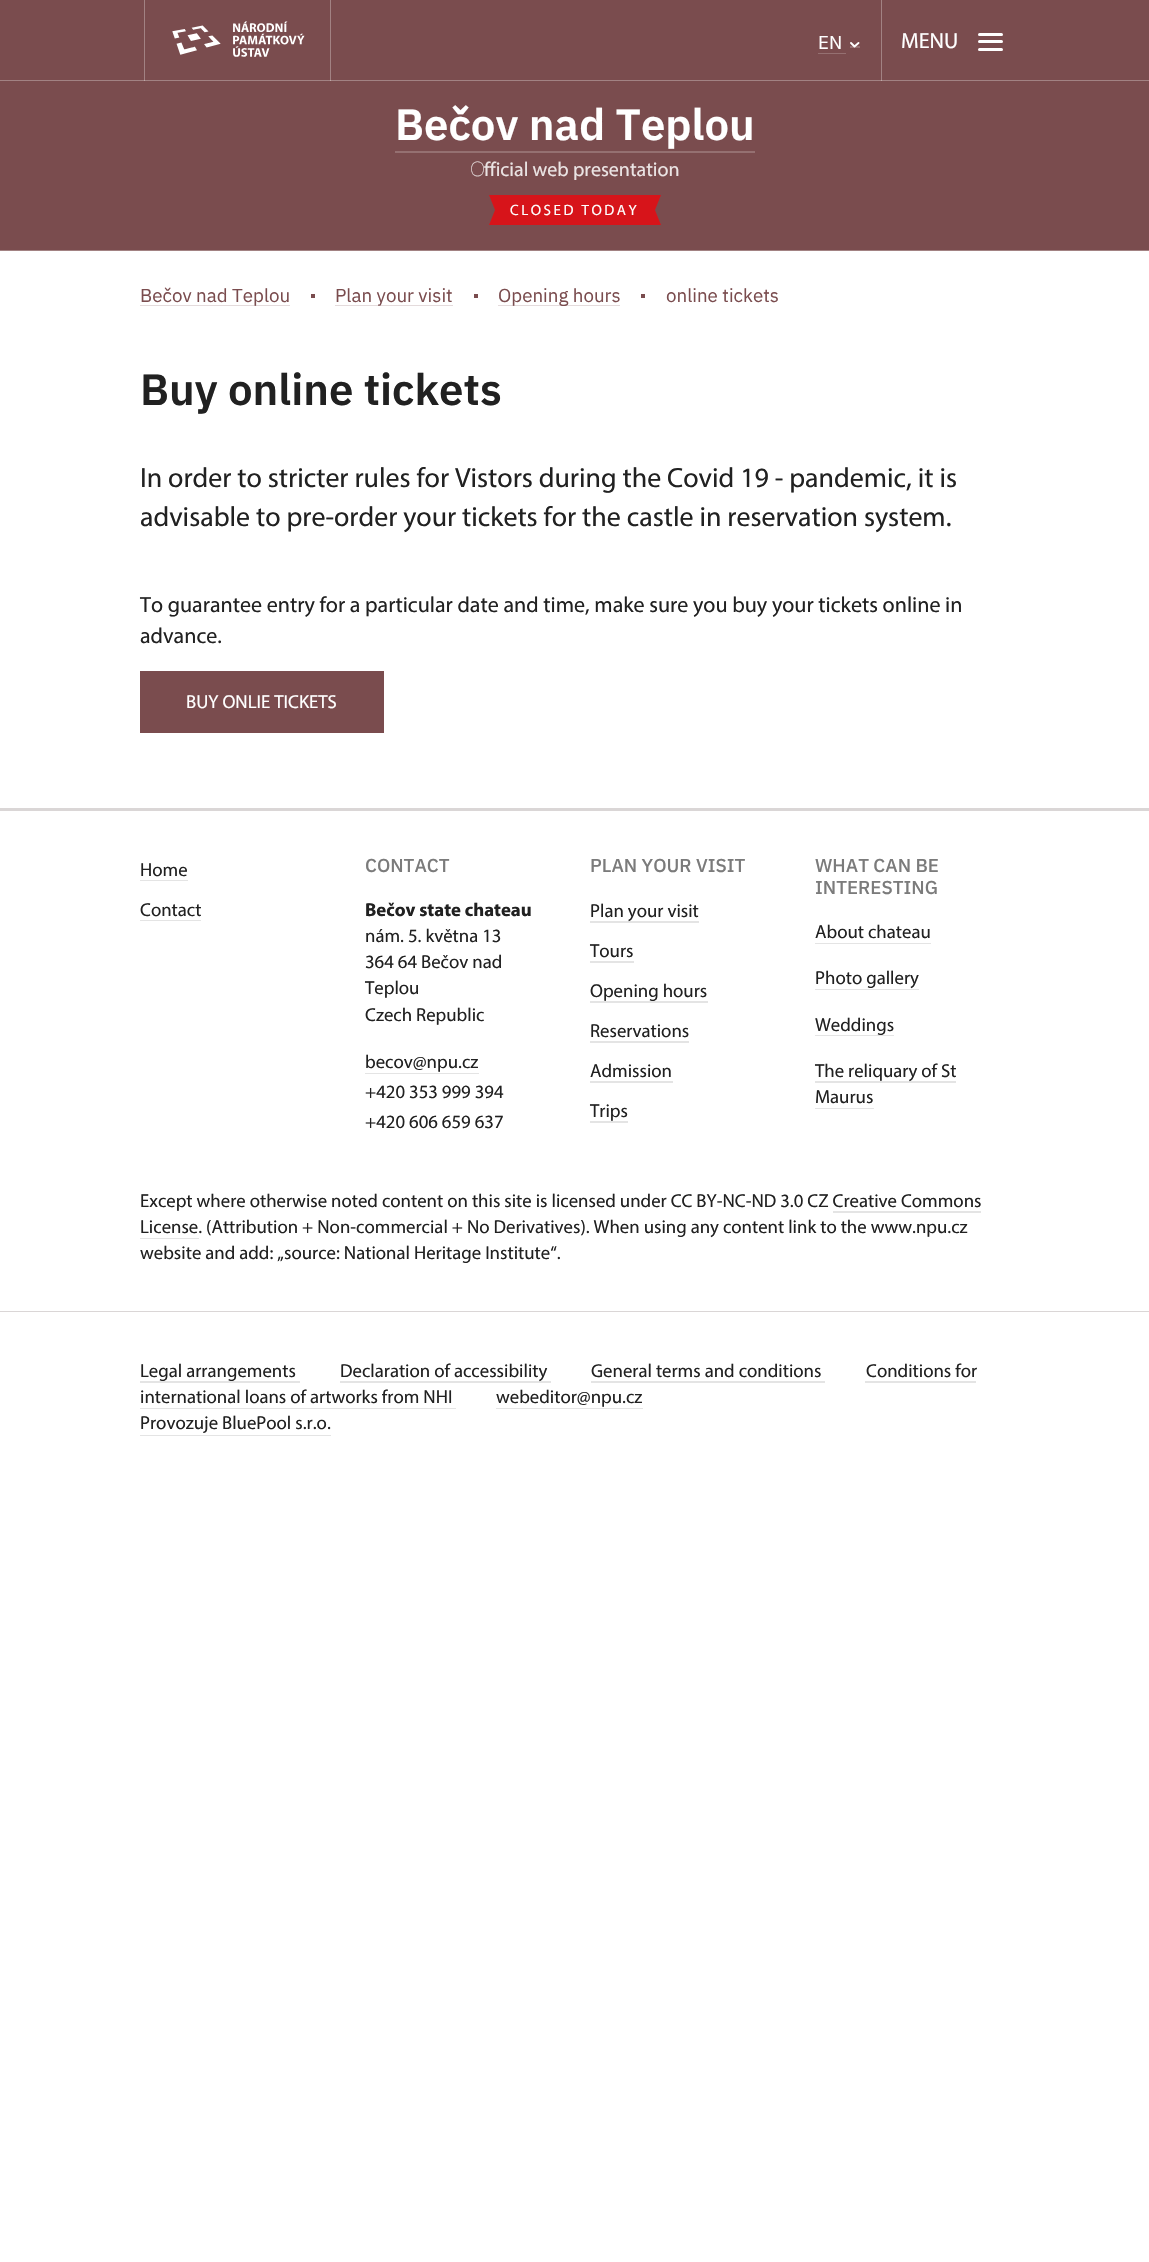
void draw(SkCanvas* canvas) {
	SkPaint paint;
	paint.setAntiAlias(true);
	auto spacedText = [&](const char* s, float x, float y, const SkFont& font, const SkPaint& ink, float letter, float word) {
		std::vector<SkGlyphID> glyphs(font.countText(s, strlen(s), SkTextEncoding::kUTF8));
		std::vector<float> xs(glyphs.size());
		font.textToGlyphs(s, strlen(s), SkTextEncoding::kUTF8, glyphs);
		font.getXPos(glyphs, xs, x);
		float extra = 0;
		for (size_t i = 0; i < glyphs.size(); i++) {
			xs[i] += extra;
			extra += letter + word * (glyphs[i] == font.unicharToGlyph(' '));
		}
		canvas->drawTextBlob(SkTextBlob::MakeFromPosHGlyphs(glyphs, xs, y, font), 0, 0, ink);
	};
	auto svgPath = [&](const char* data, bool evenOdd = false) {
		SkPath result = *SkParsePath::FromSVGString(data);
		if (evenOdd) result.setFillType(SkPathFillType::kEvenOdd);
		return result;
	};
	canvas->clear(0xffffffff);
	paint.setColor(0xff7a4c4e);
	canvas->drawRect(SkRect::MakeXYWH(0, 0, 1149, 250), paint);
	paint.setColor(0xffa28283);
	canvas->drawRect(SkRect::MakeXYWH(144, 0, 1, 81), paint);
	canvas->drawRect(SkRect::MakeXYWH(330, 0, 1, 81), paint);
	canvas->drawRect(SkRect::MakeXYWH(881, 0, 1, 81), paint);
	canvas->drawRect(SkRect::MakeXYWH(0, 80, 1149, 1), paint);
	paint.setColor(0xffbea8a8);
	canvas->drawRect(SkRect::MakeXYWH(144, 80, 1, 1), paint);
	canvas->drawRect(SkRect::MakeXYWH(330, 80, 1, 1), paint);
	canvas->drawRect(SkRect::MakeXYWH(881, 80, 1, 1), paint);
	canvas->drawImageRect(SkImages::DeferredFromEncodedData(SkData::MakeFromFileName("img1.png")), SkRect::MakeXYWH(172, 21, 133, 36), SkSamplingOptions());
	SkFont f1(fontMgr->matchFamilyStyle("IBM Plex Sans", SkFontStyle::Normal()), 18.75);
	f1.setSubpixel(true);
	paint.setColor(0xffffffff);
	canvas->drawString("EN", 818, 49, f1, paint);
	paint.setColor(0xff957071);
	canvas->drawRect(SkRect::MakeXYWH(818, 53, 28, 1), paint);
	canvas->drawRect(SkRect::MakeXYWH(850, 46, 10, 2), paint);
	paint.setStroke(true);
	paint.setStrokeWidth(1.9);
	paint.setStrokeCap(SkPaint::kRound_Cap);
	paint.setStrokeJoin(SkPaint::kRound_Join);
	paint.setColor(0xffffffff);
	canvas->drawPath(svgPath("M858.5 43L854.5 46.5L851 43"), paint);
	SkFont f2(fontMgr->matchFamilyStyle("Myriad", SkFontStyle::Normal()), 22);
	f2.setSubpixel(true);
	paint.setStroke(false);
	canvas->drawString("MENU", 901, 48, f2, paint);
	canvas->drawRoundRect(SkRect::MakeXYWH(978, 33, 25, 3), 1.5, 1.5, paint);
	canvas->drawRoundRect(SkRect::MakeXYWH(978, 40, 25, 3), 1.5, 1.5, paint);
	canvas->drawRoundRect(SkRect::MakeXYWH(978, 48, 25, 3), 1.5, 1.5, paint);
	paint.setColor(0xffa28283);
	canvas->drawRect(SkRect::MakeXYWH(0, 250, 1149, 1), paint);
	SkFont f3(fontMgr->matchFamilyStyle("IBM Plex Sans", SkFontStyle(600, SkFontStyle::kNormal_Width, SkFontStyle::kUpright_Slant)), 43.75);
	f3.setSubpixel(true);
	paint.setColor(0xffffffff);
	canvas->drawString("Bečov nad Teplou", 395, 140, f3, paint);
	paint.setColor(0xff957071);
	canvas->drawRect(SkRect::MakeXYWH(395, 151, 360, 2), paint);
	SkFont f4(fontMgr->matchFamilyStyle("Noto Sans", SkFontStyle(100, SkFontStyle::kNormal_Width, SkFontStyle::kUpright_Slant)), 20);
	f4.setSubpixel(true);
	paint.setColor(0xffebe4e4);
	canvas->drawString("O", 470, 176, f4, paint);
	SkFont f5(fontMgr->matchFamilyStyle("Myriad", SkFontStyle::Normal()), 20);
	f5.setSubpixel(true);
	canvas->drawString("fficial web presentation", 484, 176, f5, paint);
	paint.setColor(0xffd7141a);
	canvas->drawRect(SkRect::MakeXYWH(501, 195, 148, 30), paint);
	canvas->drawPath(svgPath("M489 195H501L495 210Z"), paint);
	canvas->drawRect(SkRect::MakeXYWH(495, 195, 6, 30), paint);
	canvas->drawPath(svgPath("M501 225H489L495 210Z"), paint);
	SkFont f6(fontMgr->matchFamilyStyle("Myriad", SkFontStyle::Normal()), 15);
	f6.setSubpixel(true);
	paint.setColor(0xffffffff);
	spacedText("CLOSED TODAY", 510, 215, f6, paint, 2.5, 0);
	paint.setColor(0xffd7141a);
	canvas->drawPath(svgPath("M649 195H661L655 210ZM661 225H649L655 210Z"), paint);
	canvas->drawRect(SkRect::MakeXYWH(649, 195, 6, 30), paint);
	paint.setColor(0xffe4dbdc);
	canvas->drawRect(SkRect::MakeXYWH(140, 305, 150, 1), paint);
	paint.setColor(0xff7a4c4e);
	canvas->drawString("Bečov nad Teplou", 140, 302, f1, paint);
	canvas->drawRect(SkRect::MakeXYWH(311, 294, 4, 4), paint);
	paint.setColor(0xffe4dbdc);
	canvas->drawRect(SkRect::MakeXYWH(335, 305, 118, 1), paint);
	paint.setColor(0xff7a4c4e);
	canvas->drawString("Plan your visit", 335, 302, f1, paint);
	canvas->drawRect(SkRect::MakeXYWH(474, 294, 4, 4), paint);
	paint.setColor(0xffe4dbdc);
	canvas->drawRect(SkRect::MakeXYWH(498, 305, 122, 1), paint);
	paint.setColor(0xff7a4c4e);
	canvas->drawString("Opening hours", 498, 302, f1, paint);
	canvas->drawRect(SkRect::MakeXYWH(641, 294, 4, 4), paint);
	canvas->drawString("online tickets", 666, 302, f1, paint);
	paint.setColor(0xff212121);
	canvas->drawString("Buy online tickets", 140, 405, f3, paint);
	SkFont f7(fontMgr->matchFamilyStyle("Myriad", SkFontStyle::Normal()), 27.9);
	f7.setSubpixel(true);
	canvas->drawString("In order to stricter rules for Vistors during the Covid 19 - pandemic, it is", 140, 487, f7, paint);
	canvas->drawString("advisable to pre-order your tickets for the castle in reservation system.", 140, 526, f7, paint);
	canvas->drawString("To guarantee entry for a particular date and time, make sure you buy your tickets online in", 140, 612, f2, paint);
	canvas->drawString("advance.", 140, 643, f2, paint);
	paint.setColor(0xff7a4c4e);
	canvas->drawRect(SkRect::MakeXYWH(140, 671, 244, 62), paint);
	SkFont f8(fontMgr->matchFamilyStyle("Myriad", SkFontStyle::Normal()), 18.75);
	f8.setSubpixel(true);
	paint.setColor(0xffffffff);
	canvas->drawString("BUY ONLIE TICKETS", 186, 708, f8, paint);
	paint.setColor(0xffdad6d6);
	canvas->drawRect(SkRect::MakeXYWH(0, 808, 1149, 3), paint);
	paint.setColor(0xff212121);
	canvas->drawString("Home", 140, 876, f8, paint);
	paint.setColor(0xffe4e4e4);
	canvas->drawRect(SkRect::MakeXYWH(140, 880, 48, 1), paint);
	paint.setColor(0xff212121);
	canvas->drawString("Contact", 140, 916, f8, paint);
	paint.setColor(0xffe4e4e4);
	canvas->drawRect(SkRect::MakeXYWH(140, 920, 61, 1), paint);
	SkFont f9(fontMgr->matchFamilyStyle("IBM Plex Sans", SkFontStyle(500, SkFontStyle::kNormal_Width, SkFontStyle::kUpright_Slant)), 18.75);
	f9.setSubpixel(true);
	paint.setColor(0xff7b7b7b);
	canvas->drawString("CONTACT", 365, 872, f9, paint);
	SkFont f10(fontMgr->matchFamilyStyle("Myriad", SkFontStyle::Bold()), 18.75);
	f10.setSubpixel(true);
	paint.setColor(0xff212121);
	canvas->drawString("Bečov state chateau", 365, 916, f10, paint);
	canvas->drawString("nám. 5. května 13", 365, 942, f8, paint);
	canvas->drawString("364 64 Bečov nad", 365, 968, f8, paint);
	canvas->drawString("Teplou", 365, 994, f8, paint);
	canvas->drawString("Czech Republic", 365, 1021, f8, paint);
	canvas->drawString("becov@npu.cz", 365, 1068, f8, paint);
	paint.setColor(0xffe4e4e4);
	canvas->drawRect(SkRect::MakeXYWH(365, 1073, 114, 1), paint);
	paint.setColor(0xff212121);
	canvas->drawString("+420 353 999 394", 365, 1098, f8, paint);
	canvas->drawString("+420 606 659 637", 365, 1128, f8, paint);
	paint.setColor(0xff7b7b7b);
	canvas->drawString("PLAN YOUR VISIT", 590, 872, f9, paint);
	paint.setColor(0xffe4e4e4);
	canvas->drawRect(SkRect::MakeXYWH(590, 921, 109, 2), paint);
	paint.setColor(0xff212121);
	canvas->drawString("Plan your visit", 590, 917, f8, paint);
	canvas->drawString("Tours", 590, 957, f8, paint);
	paint.setColor(0xffe4e4e4);
	canvas->drawRect(SkRect::MakeXYWH(590, 961, 44, 2), paint);
	paint.setColor(0xff212121);
	canvas->drawString("Opening hours", 590, 997, f8, paint);
	paint.setColor(0xffe4e4e4);
	canvas->drawRect(SkRect::MakeXYWH(590, 1001, 118, 2), paint);
	paint.setColor(0xff212121);
	canvas->drawString("Reservations", 590, 1037, f8, paint);
	paint.setColor(0xffe4e4e4);
	canvas->drawRect(SkRect::MakeXYWH(590, 1041, 99, 2), paint);
	paint.setColor(0xff212121);
	canvas->drawString("Admission", 590, 1077, f8, paint);
	paint.setColor(0xffe4e4e4);
	canvas->drawRect(SkRect::MakeXYWH(590, 1081, 83, 2), paint);
	paint.setColor(0xff212121);
	canvas->drawString("Trips", 590, 1117, f8, paint);
	paint.setColor(0xffe4e4e4);
	canvas->drawRect(SkRect::MakeXYWH(590, 1121, 38, 2), paint);
	paint.setColor(0xff7b7b7b);
	canvas->drawString("WHAT CAN BE", 815, 872, f9, paint);
	canvas->drawString("INTERESTING", 815, 894, f9, paint);
	paint.setColor(0xff212121);
	canvas->drawString("About chateau", 815, 938, f8, paint);
	paint.setColor(0xffe4e4e4);
	canvas->drawRect(SkRect::MakeXYWH(815, 943, 116, 1), paint);
	paint.setColor(0xff212121);
	canvas->drawString("Photo gallery", 815, 984, f8, paint);
	paint.setColor(0xffe4e4e4);
	canvas->drawRect(SkRect::MakeXYWH(815, 989, 104, 1), paint);
	paint.setColor(0xff212121);
	canvas->drawString("Weddings", 815, 1031, f8, paint);
	paint.setColor(0xffe4e4e4);
	canvas->drawRect(SkRect::MakeXYWH(815, 1035, 79, 1), paint);
	canvas->drawRect(SkRect::MakeXYWH(815, 1081, 141, 2), paint);
	paint.setColor(0xff212121);
	canvas->drawString("The reliquary of St", 815, 1077, f8, paint);
	canvas->drawString("Maurus", 815, 1103, f8, paint);
	paint.setColor(0xffe4e4e4);
	canvas->drawRect(SkRect::MakeXYWH(815, 1108, 59, 1), paint);
	paint.setColor(0xff212121);
	canvas->drawString("Except where otherwise noted content on this site is licensed under CC BY-NC-ND 3.0 CZ Creative Commons", 140, 1207, f8, paint);
	canvas->drawString("License. (Attribution + Non-commercial + No Derivatives). When using any content link to the www.npu.cz", 140, 1233, f8, paint);
	paint.setColor(0xffe4e4e4);
	canvas->drawRect(SkRect::MakeXYWH(833, 1211, 148, 2), paint);
	canvas->drawRect(SkRect::MakeXYWH(140, 1238, 59, 1), paint);
	paint.setColor(0xff212121);
	canvas->drawString("website and add: „source: National Heritage Institute“.", 140, 1259, f8, paint);
	paint.setColor(0xffdad6d6);
	canvas->drawRect(SkRect::MakeXYWH(0, 1311, 1149, 1), paint);
	paint.setColor(0xff212121);
	canvas->drawString("Legal arrangements", 140, 1377, f8, paint);
	paint.setColor(0xffe4e4e4);
	canvas->drawRect(SkRect::MakeXYWH(140, 1381, 160, 2), paint);
	canvas->drawRect(SkRect::MakeXYWH(340, 1381, 211, 2), paint);
	paint.setColor(0xff212121);
	canvas->drawString("Declaration of accessibility", 340, 1377, f8, paint);
	canvas->drawString("General terms and conditions", 591, 1377, f8, paint);
	paint.setColor(0xffe4e4e4);
	canvas->drawRect(SkRect::MakeXYWH(591, 1381, 234, 2), paint);
	paint.setColor(0xff212121);
	canvas->drawString("Conditions for", 866, 1377, f8, paint);
	paint.setColor(0xffe4e4e4);
	canvas->drawRect(SkRect::MakeXYWH(865, 1381, 111, 2), paint);
	paint.setColor(0xff212121);
	canvas->drawString("international loans of artworks from NHI", 140, 1403, f8, paint);
	paint.setColor(0xffe4e4e4);
	canvas->drawRect(SkRect::MakeXYWH(140, 1408, 316, 1), paint);
	paint.setColor(0xff212121);
	canvas->drawString("webeditor@npu.cz", 496, 1403, f8, paint);
	paint.setColor(0xffe4e4e4);
	canvas->drawRect(SkRect::MakeXYWH(496, 1408, 147, 1), paint);
	canvas->drawRect(SkRect::MakeXYWH(140, 1435, 191, 1), paint);
	paint.setColor(0xff212121);
	canvas->drawString("Provozuje BluePool s.r.o.", 140, 1429, f8, paint);
}
